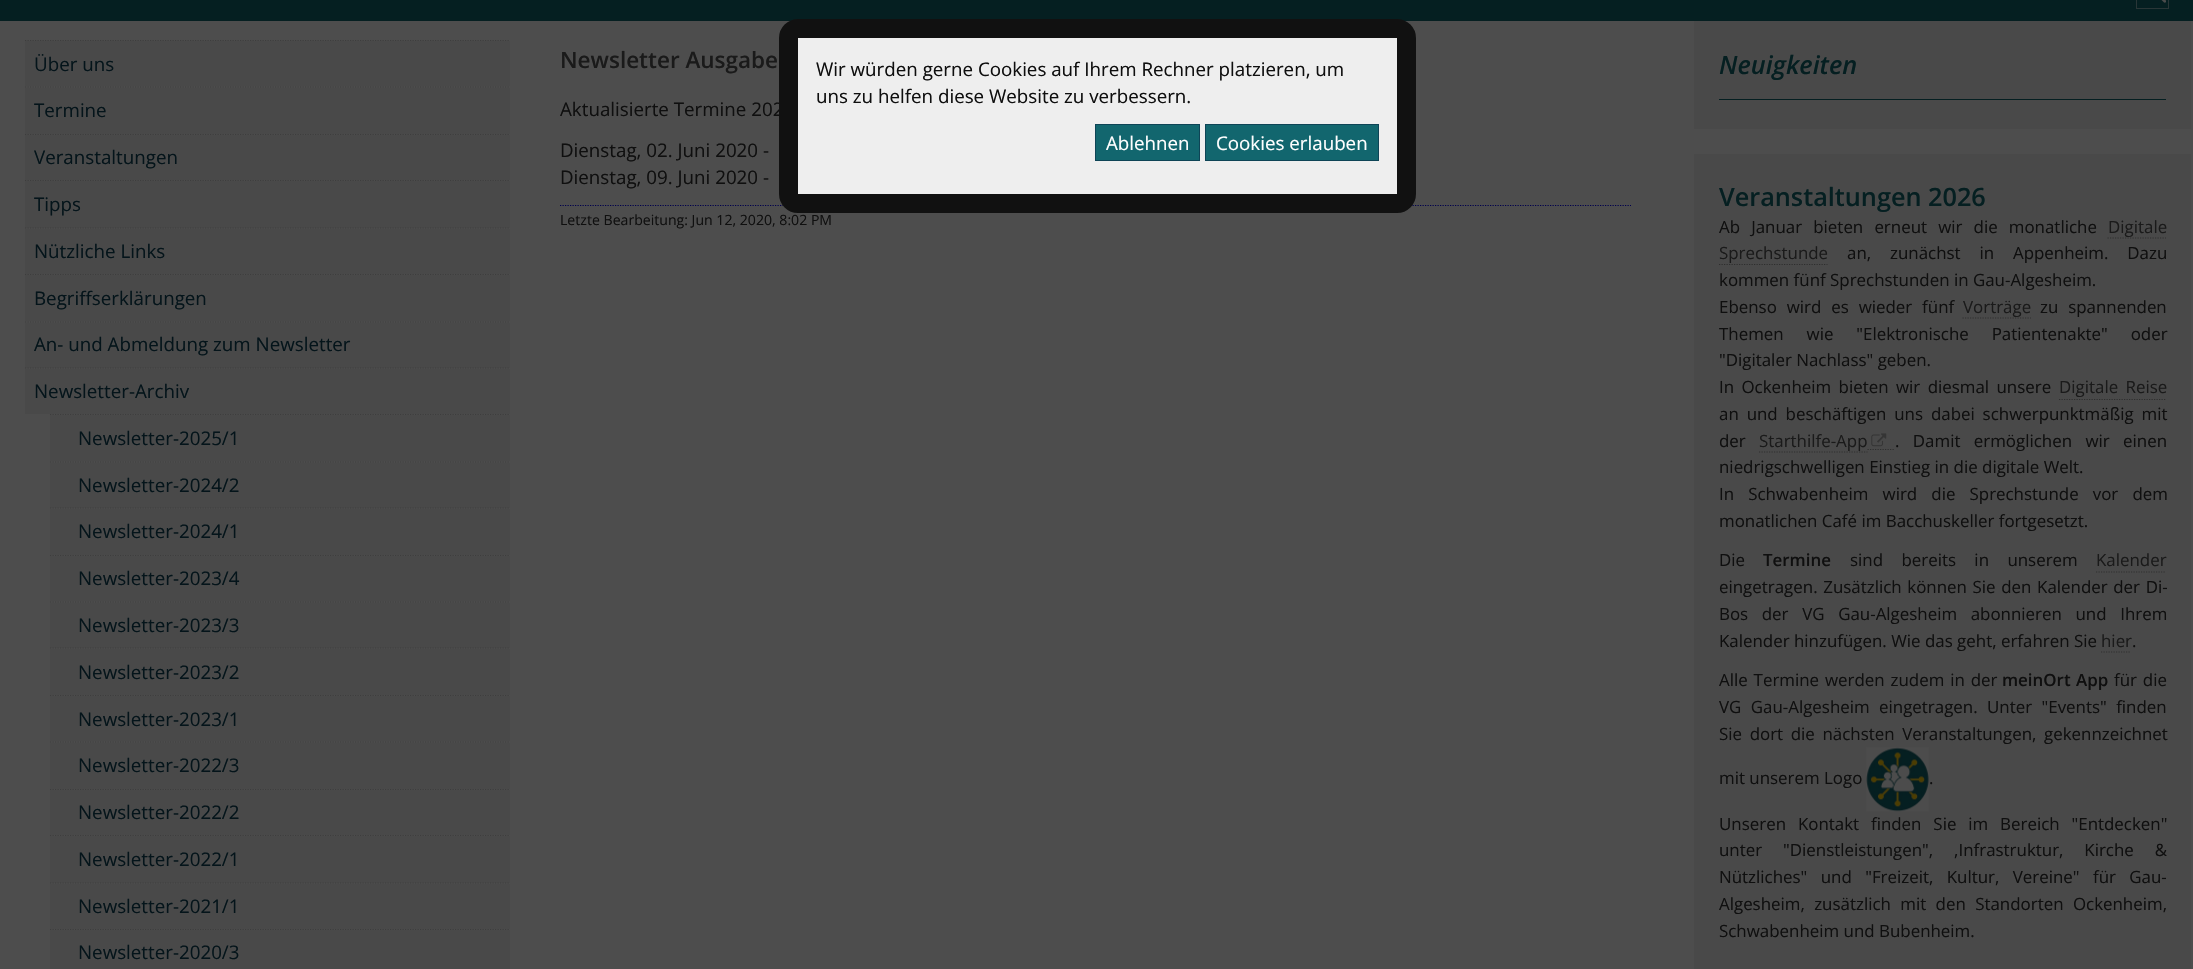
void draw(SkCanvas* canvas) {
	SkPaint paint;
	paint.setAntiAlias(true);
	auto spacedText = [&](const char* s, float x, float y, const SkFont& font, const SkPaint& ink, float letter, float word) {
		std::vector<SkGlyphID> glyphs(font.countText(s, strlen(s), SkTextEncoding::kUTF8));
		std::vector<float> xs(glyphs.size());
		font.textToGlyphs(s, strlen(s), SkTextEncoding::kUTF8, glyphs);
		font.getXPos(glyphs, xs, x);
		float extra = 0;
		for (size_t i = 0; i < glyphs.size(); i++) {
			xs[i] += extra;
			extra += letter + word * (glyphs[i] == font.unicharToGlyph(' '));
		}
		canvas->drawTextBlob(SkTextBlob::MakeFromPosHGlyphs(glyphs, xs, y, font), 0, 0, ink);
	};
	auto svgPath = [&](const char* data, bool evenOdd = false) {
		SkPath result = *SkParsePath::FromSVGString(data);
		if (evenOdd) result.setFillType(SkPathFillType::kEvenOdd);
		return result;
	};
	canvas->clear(0xff4d4d4d);
	paint.setColor(0xff051f21);
	canvas->drawRect(SkRect::MakeXYWH(0, 0, 2193, 21), paint);
	paint.setStroke(true);
	paint.setStrokeWidth(1);
	paint.setColor(0xff293637);
	canvas->drawRect(SkRect::MakeXYWH(2136.5, -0.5, 32, 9), paint);
	canvas->drawImageRect(SkImages::DeferredFromEncodedData(SkData::MakeFromFileName("img1.png")), SkRect::MakeXYWH(2161, 0, 5, 3), SkSamplingOptions());
	paint.setStrokeWidth(1.2);
	paint.setColor(0xff3d3d3d);
	paint.setPathEffect(SkDashPathEffect::Make({{1.25f, 1.25f}}, 0));
	canvas->drawPath(svgPath("M25 40.5H510"), paint);
	paint.setPathEffect(nullptr);
	paint.setStroke(false);
	paint.setColor(0xff494949);
	canvas->drawRect(SkRect::MakeXYWH(25, 41, 485, 45), paint);
	SkFont f1(fontMgr->matchFamilyStyle("Open Sans", SkFontStyle::Normal()), 18.75);
	f1.setSubpixel(true);
	paint.setColor(0xff04141a);
	canvas->drawString("Über uns", 34, 71, f1, paint);
	paint.setStroke(true);
	paint.setColor(0xff3d3d3d);
	paint.setPathEffect(SkDashPathEffect::Make({{1.25f, 1.25f}}, 0));
	canvas->drawPath(svgPath("M25 87H510"), paint);
	paint.setPathEffect(nullptr);
	paint.setStroke(false);
	paint.setColor(0xff494949);
	canvas->drawRect(SkRect::MakeXYWH(25, 88, 485, 46), paint);
	paint.setColor(0xff04141a);
	canvas->drawString("Termine", 34, 117, f1, paint);
	paint.setStroke(true);
	paint.setColor(0xff3d3d3d);
	paint.setPathEffect(SkDashPathEffect::Make({{1.25f, 1.25f}}, 0));
	canvas->drawPath(svgPath("M25 134.5H510"), paint);
	paint.setPathEffect(nullptr);
	paint.setStroke(false);
	paint.setColor(0xff494949);
	canvas->drawRect(SkRect::MakeXYWH(25, 135, 485, 45), paint);
	paint.setColor(0xff04141a);
	canvas->drawString("Veranstaltungen", 34, 164, f1, paint);
	paint.setStroke(true);
	paint.setColor(0xff3d3d3d);
	paint.setPathEffect(SkDashPathEffect::Make({{1.25f, 1.25f}}, 0));
	canvas->drawPath(svgPath("M25 180.5H510"), paint);
	paint.setPathEffect(nullptr);
	paint.setStroke(false);
	paint.setColor(0xff494949);
	canvas->drawRect(SkRect::MakeXYWH(25, 181, 485, 47), paint);
	paint.setColor(0xff04141a);
	canvas->drawString("Tipps", 34, 211, f1, paint);
	paint.setStroke(true);
	paint.setColor(0xff3d3d3d);
	paint.setPathEffect(SkDashPathEffect::Make({{1.25f, 1.25f}}, 0));
	canvas->drawPath(svgPath("M25 228H510"), paint);
	paint.setPathEffect(nullptr);
	paint.setStroke(false);
	paint.setColor(0xff494949);
	canvas->drawRect(SkRect::MakeXYWH(25, 229, 485, 45), paint);
	paint.setColor(0xff04141a);
	canvas->drawString("Nützliche Links", 34, 258, f1, paint);
	paint.setStroke(true);
	paint.setColor(0xff3d3d3d);
	paint.setPathEffect(SkDashPathEffect::Make({{1.25f, 1.25f}}, 0));
	canvas->drawPath(svgPath("M25 274.5H510"), paint);
	paint.setPathEffect(nullptr);
	paint.setStroke(false);
	paint.setColor(0xff494949);
	canvas->drawRect(SkRect::MakeXYWH(25, 275, 485, 46), paint);
	paint.setColor(0xff04141a);
	canvas->drawString("Begriffserklärungen", 34, 305, f1, paint);
	paint.setStroke(true);
	paint.setColor(0xff3d3d3d);
	paint.setPathEffect(SkDashPathEffect::Make({{1.25f, 1.25f}}, 0));
	canvas->drawPath(svgPath("M25 322H510"), paint);
	paint.setPathEffect(nullptr);
	paint.setStroke(false);
	paint.setColor(0xff494949);
	canvas->drawRect(SkRect::MakeXYWH(25, 323, 485, 45), paint);
	paint.setColor(0xff04141a);
	canvas->drawString("An- und Abmeldung zum Newsletter", 34, 351, f1, paint);
	paint.setStroke(true);
	paint.setColor(0xff3d3d3d);
	paint.setPathEffect(SkDashPathEffect::Make({{1.25f, 1.25f}}, 0));
	canvas->drawPath(svgPath("M25 368H510"), paint);
	paint.setPathEffect(nullptr);
	paint.setStroke(false);
	paint.setColor(0xff494949);
	canvas->drawRect(SkRect::MakeXYWH(25, 369, 485, 45), paint);
	paint.setColor(0xff04141a);
	canvas->drawString("Newsletter-Archiv", 34, 398, f1, paint);
	paint.setStroke(true);
	paint.setColor(0xff3d3d3d);
	paint.setPathEffect(SkDashPathEffect::Make({{1.25f, 1.25f}}, 0));
	canvas->drawPath(svgPath("M50 414.5H510"), paint);
	paint.setPathEffect(nullptr);
	paint.setStroke(false);
	paint.setColor(0xff494949);
	canvas->drawRect(SkRect::MakeXYWH(50, 415, 460, 46), paint);
	paint.setColor(0xff04141a);
	canvas->drawString("Newsletter-2025/1", 78, 445, f1, paint);
	paint.setStroke(true);
	paint.setColor(0xff3d3d3d);
	paint.setPathEffect(SkDashPathEffect::Make({{1.25f, 1.25f}}, 0));
	canvas->drawPath(svgPath("M50 462H510"), paint);
	paint.setPathEffect(nullptr);
	paint.setStroke(false);
	paint.setColor(0xff494949);
	canvas->drawRect(SkRect::MakeXYWH(50, 463, 460, 45), paint);
	paint.setColor(0xff04141a);
	canvas->drawString("Newsletter-2024/2", 78, 492, f1, paint);
	paint.setStroke(true);
	paint.setColor(0xff3d3d3d);
	paint.setPathEffect(SkDashPathEffect::Make({{1.25f, 1.25f}}, 0));
	canvas->drawPath(svgPath("M50 508H510"), paint);
	paint.setPathEffect(nullptr);
	paint.setStroke(false);
	paint.setColor(0xff494949);
	canvas->drawRect(SkRect::MakeXYWH(50, 509, 460, 46), paint);
	paint.setColor(0xff04141a);
	canvas->drawString("Newsletter-2024/1", 78, 538, f1, paint);
	paint.setStroke(true);
	paint.setColor(0xff3d3d3d);
	paint.setPathEffect(SkDashPathEffect::Make({{1.25f, 1.25f}}, 0));
	canvas->drawPath(svgPath("M50 555.5H510"), paint);
	paint.setPathEffect(nullptr);
	paint.setStroke(false);
	paint.setColor(0xff494949);
	canvas->drawRect(SkRect::MakeXYWH(50, 556, 460, 45), paint);
	paint.setColor(0xff04141a);
	canvas->drawString("Newsletter-2023/4", 78, 585, f1, paint);
	paint.setStroke(true);
	paint.setColor(0xff3d3d3d);
	paint.setPathEffect(SkDashPathEffect::Make({{1.25f, 1.25f}}, 0));
	canvas->drawPath(svgPath("M50 602H510"), paint);
	paint.setPathEffect(nullptr);
	paint.setStroke(false);
	paint.setColor(0xff494949);
	canvas->drawRect(SkRect::MakeXYWH(50, 603, 460, 45), paint);
	paint.setColor(0xff04141a);
	canvas->drawString("Newsletter-2023/3", 78, 632, f1, paint);
	paint.setStroke(true);
	paint.setColor(0xff3d3d3d);
	paint.setPathEffect(SkDashPathEffect::Make({{1.25f, 1.25f}}, 0));
	canvas->drawPath(svgPath("M50 648H510"), paint);
	paint.setPathEffect(nullptr);
	paint.setStroke(false);
	paint.setColor(0xff494949);
	canvas->drawRect(SkRect::MakeXYWH(50, 649, 460, 46), paint);
	paint.setColor(0xff04141a);
	canvas->drawString("Newsletter-2023/2", 78, 679, f1, paint);
	paint.setStroke(true);
	paint.setColor(0xff3d3d3d);
	paint.setPathEffect(SkDashPathEffect::Make({{1.25f, 1.25f}}, 0));
	canvas->drawPath(svgPath("M50 695.5H510"), paint);
	paint.setPathEffect(nullptr);
	paint.setStroke(false);
	paint.setColor(0xff494949);
	canvas->drawRect(SkRect::MakeXYWH(50, 696, 460, 45), paint);
	paint.setColor(0xff04141a);
	canvas->drawString("Newsletter-2023/1", 78, 726, f1, paint);
	paint.setStroke(true);
	paint.setColor(0xff3d3d3d);
	paint.setPathEffect(SkDashPathEffect::Make({{1.25f, 1.25f}}, 0));
	canvas->drawPath(svgPath("M50 742H510"), paint);
	paint.setPathEffect(nullptr);
	paint.setStroke(false);
	paint.setColor(0xff494949);
	canvas->drawRect(SkRect::MakeXYWH(50, 743, 460, 46), paint);
	paint.setColor(0xff04141a);
	canvas->drawString("Newsletter-2022/3", 78, 772, f1, paint);
	paint.setStroke(true);
	paint.setColor(0xff3d3d3d);
	paint.setPathEffect(SkDashPathEffect::Make({{1.25f, 1.25f}}, 0));
	canvas->drawPath(svgPath("M50 789.5H510"), paint);
	paint.setPathEffect(nullptr);
	paint.setStroke(false);
	paint.setColor(0xff494949);
	canvas->drawRect(SkRect::MakeXYWH(50, 790, 460, 45), paint);
	paint.setColor(0xff04141a);
	canvas->drawString("Newsletter-2022/2", 78, 819, f1, paint);
	paint.setStroke(true);
	paint.setColor(0xff3d3d3d);
	paint.setPathEffect(SkDashPathEffect::Make({{1.25f, 1.25f}}, 0));
	canvas->drawPath(svgPath("M50 835.5H510"), paint);
	paint.setPathEffect(nullptr);
	paint.setStroke(false);
	paint.setColor(0xff494949);
	canvas->drawRect(SkRect::MakeXYWH(50, 836, 460, 47), paint);
	paint.setColor(0xff04141a);
	canvas->drawString("Newsletter-2022/1", 78, 866, f1, paint);
	paint.setStroke(true);
	paint.setColor(0xff3d3d3d);
	paint.setPathEffect(SkDashPathEffect::Make({{1.25f, 1.25f}}, 0));
	canvas->drawPath(svgPath("M50 883H510"), paint);
	paint.setPathEffect(nullptr);
	paint.setStroke(false);
	paint.setColor(0xff494949);
	canvas->drawRect(SkRect::MakeXYWH(50, 884, 460, 45), paint);
	paint.setColor(0xff04141a);
	canvas->drawString("Newsletter-2021/1", 78, 913, f1, paint);
	paint.setStroke(true);
	paint.setColor(0xff3d3d3d);
	paint.setPathEffect(SkDashPathEffect::Make({{1.25f, 1.25f}}, 0));
	canvas->drawPath(svgPath("M50 929.5H510"), paint);
	paint.setPathEffect(nullptr);
	paint.setStroke(false);
	paint.setColor(0xff494949);
	canvas->drawRect(SkRect::MakeXYWH(50, 930, 460, 39), paint);
	paint.setColor(0xff04141a);
	canvas->drawString("Newsletter-2020/3", 78, 959, f1, paint);
	SkFont f2(fontMgr->matchFamilyStyle("Open Sans", SkFontStyle(600, SkFontStyle::kNormal_Width, SkFontStyle::kUpright_Slant)), 22.5);
	f2.setSubpixel(true);
	paint.setColor(0xff1a1a1a);
	canvas->drawString("Newsletter Ausgabe", 560, 68, f2, paint);
	paint.setColor(0xff0f0f0f);
	canvas->drawString("Aktualisierte Termine 202", 560, 116, f1, paint);
	canvas->drawString("Dienstag, 02. Juni 2020 -", 560, 157, f1, paint);
	canvas->drawString("Dienstag, 09. Juni 2020 -", 560, 184, f1, paint);
	paint.setStroke(true);
	paint.setColor(0xff00004d);
	paint.setPathEffect(SkDashPathEffect::Make({{1.25f, 1.25f}}, 0));
	canvas->drawPath(svgPath("M560 205.5H1631"), paint);
	paint.setPathEffect(nullptr);
	SkFont f3(fontMgr->matchFamilyStyle("Open Sans", SkFontStyle::Normal()), 14.1);
	f3.setSubpixel(true);
	paint.setStroke(false);
	paint.setColor(0xff0f0f0f);
	canvas->drawString("Letzte Bearbeitung: Jun 12, 2020, 8:02 PM", 560, 225, f3, paint);
	paint.setColor(0xff494949);
	canvas->drawRect(SkRect::MakeXYWH(1694, 21, 497, 108), paint);
	SkFont f4(fontMgr->matchFamilyStyle("Open Sans", SkFontStyle(600, SkFontStyle::kNormal_Width, SkFontStyle::kItalic_Slant)), 25.25);
	f4.setSubpixel(true);
	paint.setColor(0xff051f21);
	canvas->drawString("Neuigkeiten", 1719, 74, f4, paint);
	canvas->drawRect(SkRect::MakeXYWH(1719, 99, 447, 1), paint);
	paint.setColor(0xff494949);
	canvas->drawRect(SkRect::MakeXYWH(1694, 154, 497, 815), paint);
	SkFont f5(fontMgr->matchFamilyStyle("Open Sans", SkFontStyle(600, SkFontStyle::kNormal_Width, SkFontStyle::kUpright_Slant)), 25.25);
	f5.setSubpixel(true);
	paint.setColor(0xff051f21);
	canvas->drawString("Veranstaltungen 2026", 1719, 206, f5, paint);
	SkFont f6(fontMgr->matchFamilyStyle("Open Sans", SkFontStyle::Normal()), 16.9);
	f6.setSubpixel(true);
	paint.setColor(0xff0f0f0f);
	spacedText("Ab Januar bieten erneut wir die monatliche", 1719, 233, f6, paint, 0, 6.75);
	paint.setStroke(true);
	paint.setColor(0xff2e2e2e);
	paint.setPathEffect(SkDashPathEffect::Make({{1.25f, 1.25f}}, 0));
	canvas->drawPath(svgPath("M2107.5 238H2166"), paint);
	paint.setPathEffect(nullptr);
	paint.setStroke(false);
	paint.setColor(0xff1a1a1a);
	canvas->drawString("Digitale", 2108, 233, f6, paint);
	paint.setStroke(true);
	paint.setColor(0xff2e2e2e);
	paint.setPathEffect(SkDashPathEffect::Make({{1.25f, 1.25f}}, 0));
	canvas->drawPath(svgPath("M1719 264.5H1827.5"), paint);
	paint.setPathEffect(nullptr);
	paint.setStroke(false);
	paint.setColor(0xff1a1a1a);
	canvas->drawString("Sprechstunde", 1719, 259, f6, paint);
	paint.setColor(0xff0f0f0f);
	spacedText("an, zunächst in Appenheim. Dazu", 1847, 259, f6, paint, 0, 14.5);
	canvas->drawString("kommen fünf Sprechstunden in Gau-Algesheim.", 1719, 286, f6, paint);
	spacedText("Ebenso wird es wieder fünf", 1719, 313, f6, paint, 0, 5.5);
	paint.setStroke(true);
	paint.setColor(0xff2e2e2e);
	paint.setPathEffect(SkDashPathEffect::Make({{1.25f, 1.25f}}, 0));
	canvas->drawPath(svgPath("M1962.5 318H2031"), paint);
	paint.setPathEffect(nullptr);
	paint.setStroke(false);
	paint.setColor(0xff1a1a1a);
	canvas->drawString("Vorträge", 1963, 313, f6, paint);
	paint.setColor(0xff0f0f0f);
	spacedText("zu spannenden", 2040, 313, f6, paint, 0, 5.5);
	spacedText("Themen wie \"Elektronische Patientenakte\" oder", 1719, 340, f6, paint, 0, 18.5);
	canvas->drawString("\"Digitaler Nachlass\" geben.", 1719, 366, f6, paint);
	spacedText("In Ockenheim bieten wir diesmal unsere", 1719, 393, f6, paint, 0, 3);
	paint.setColor(0xff1a1a1a);
	spacedText("Digitale Reise", 2059, 393, f6, paint, 0, 3);
	paint.setStroke(true);
	paint.setColor(0xff2e2e2e);
	paint.setPathEffect(SkDashPathEffect::Make({{1.25f, 1.25f}}, 0));
	canvas->drawPath(svgPath("M2059 399.5H2166"), paint);
	paint.setPathEffect(nullptr);
	paint.setStroke(false);
	paint.setColor(0xff0f0f0f);
	spacedText("an und beschäftigen uns dabei schwerpunktmäßig mit", 1719, 420, f6, paint, 0, 3.5);
	canvas->drawString("der", 1719, 447, f6, paint);
	paint.setStroke(true);
	paint.setColor(0xff2e2e2e);
	paint.setPathEffect(SkDashPathEffect::Make({{1.25f, 1.25f}}, 0));
	canvas->drawPath(svgPath("M1759 452H1867.5"), paint);
	paint.setPathEffect(nullptr);
	paint.setStroke(false);
	paint.setColor(0xff1a1a1a);
	canvas->drawString("Starthilfe-App", 1759, 447, f6, paint);
	paint.setStroke(true);
	paint.setColor(0xff2e2e2e);
	paint.setPathEffect(SkDashPathEffect::Make({{1.25f, 1.25f}}, 0));
	canvas->drawPath(svgPath("M1867.5 449.5H1895"), paint);
	paint.setPathEffect(nullptr);
	canvas->drawImageRect(SkImages::DeferredFromEncodedData(SkData::MakeFromFileName("img2.png")), SkRect::MakeXYWH(1871, 433, 16, 14), SkSamplingOptions());
	paint.setStroke(false);
	paint.setColor(0xff0f0f0f);
	spacedText(". Damit ermöglichen wir einen", 1895, 447, f6, paint, 0, 9);
	canvas->drawString("niedrigschwelligen Einstieg in die digitale Welt.", 1719, 473, f6, paint);
	spacedText("In Schwabenheim wird die Sprechstunde vor dem", 1719, 500, f6, paint, 0, 9.75);
	canvas->drawString("monatlichen Café im Bacchuskeller fortgesetzt.", 1719, 527, f6, paint);
	canvas->drawString("Die", 1719, 566, f6, paint);
	SkFont f7(fontMgr->matchFamilyStyle("Open Sans", SkFontStyle(600, SkFontStyle::kNormal_Width, SkFontStyle::kUpright_Slant)), 16.9);
	f7.setSubpixel(true);
	canvas->drawString("Termine", 1763, 566, f7, paint);
	spacedText("sind bereits in unserem", 1850, 566, f6, paint, 0, 14);
	paint.setColor(0xff1a1a1a);
	canvas->drawString("Kalender", 2096, 566, f6, paint);
	paint.setStroke(true);
	paint.setColor(0xff2e2e2e);
	paint.setPathEffect(SkDashPathEffect::Make({{1.25f, 1.25f}}, 0));
	canvas->drawPath(svgPath("M2096 572H2166"), paint);
	paint.setPathEffect(nullptr);
	paint.setStroke(false);
	paint.setColor(0xff0f0f0f);
	spacedText("eingetragen. Zusätzlich können Sie den Kalender der Di-", 1719, 593, f6, paint, 0, 1.25);
	spacedText("Bos der VG Gau-Algesheim abonnieren und Ihrem", 1719, 620, f6, paint, 0, 9.25);
	canvas->drawString("Kalender hinzufügen. Wie das geht, erfahren Sie", 1719, 647, f6, paint);
	paint.setColor(0xff1a1a1a);
	canvas->drawString("hier", 2101, 647, f6, paint);
	paint.setStroke(true);
	paint.setColor(0xff2e2e2e);
	paint.setPathEffect(SkDashPathEffect::Make({{1.25f, 1.25f}}, 0));
	canvas->drawPath(svgPath("M2101 652H2131"), paint);
	paint.setPathEffect(nullptr);
	paint.setStroke(false);
	paint.setColor(0xff0f0f0f);
	canvas->drawString(".", 2132, 647, f6, paint);
	spacedText("Alle Termine werden zudem in der", 1719, 686, f6, paint, 0, 1.5);
	spacedText("meinOrt App", 2002, 686, f7, paint, 0, 1);
	spacedText("für die", 2114, 686, f6, paint, 0, 1.5);
	spacedText("VG Gau-Algesheim eingetragen. Unter \"Events\" finden", 1719, 713, f6, paint, 0, 5);
	spacedText("Sie dort die nächsten Veranstaltungen, gekennzeichnet", 1719, 740, f6, paint, 0, 3.25);
	canvas->drawString("mit unserem Logo", 1719, 784, f6, paint);
	canvas->drawImageRect(SkImages::DeferredFromEncodedData(SkData::MakeFromFileName("img3.png")), SkRect::MakeXYWH(1866, 747, 63, 65), SkSamplingOptions());
	canvas->drawString(".", 1929, 784, f6, paint);
	spacedText("Unseren Kontakt finden Sie im Bereich \"Entdecken\"", 1719, 830, f6, paint, 0, 7.5);
	spacedText("unter \"Dienstleistungen\", ,Infrastruktur, Kirche &", 1719, 856, f6, paint, 0, 16.5);
	spacedText("Nützliches\" und \"Freizeit, Kultur, Vereine\" für Gau-", 1719, 883, f6, paint, 0, 9);
	spacedText("Algesheim, zusätzlich mit den Standorten Ockenheim,", 1719, 910, f6, paint, 0, 5);
	canvas->drawString("Schwabenheim und Bubenheim.", 1719, 937, f6, paint);
	paint.setColor(0xffeeeeee);
	canvas->drawRoundRect(SkRect::MakeXYWH(788.5, 28.5, 618, 175), 9.5, 9.5, paint);
	paint.setStroke(true);
	paint.setStrokeWidth(19);
	paint.setColor(0xff111111);
	canvas->drawRoundRect(SkRect::MakeXYWH(788.5, 28.5, 618, 175), 9.5, 9.5, paint);
	paint.setStroke(false);
	paint.setColor(0xff0f0f0f);
	canvas->drawString("Wir würden gerne Cookies auf Ihrem Rechner platzieren, um", 816, 76, f1, paint);
	canvas->drawString("uns zu helfen diese Website zu verbessern.", 816, 103, f1, paint);
	paint.setColor(0xff12666e);
	canvas->drawRect(SkRect::MakeXYWH(1095.5, 124.5, 104, 36), paint);
	paint.setStroke(true);
	paint.setStrokeWidth(1);
	paint.setColor(0xff0e4456);
	canvas->drawRect(SkRect::MakeXYWH(1095.5, 124.5, 104, 36), paint);
	paint.setStroke(false);
	paint.setColor(0xffffffff);
	canvas->drawString("Ablehnen", 1106, 150, f1, paint);
	paint.setColor(0xff12666e);
	canvas->drawRect(SkRect::MakeXYWH(1205.5, 124.5, 173, 36), paint);
	paint.setStroke(true);
	paint.setColor(0xff0e4456);
	canvas->drawRect(SkRect::MakeXYWH(1205.5, 124.5, 173, 36), paint);
	paint.setStroke(false);
	paint.setColor(0xffffffff);
	canvas->drawString("Cookies erlauben", 1216, 150, f1, paint);
}
